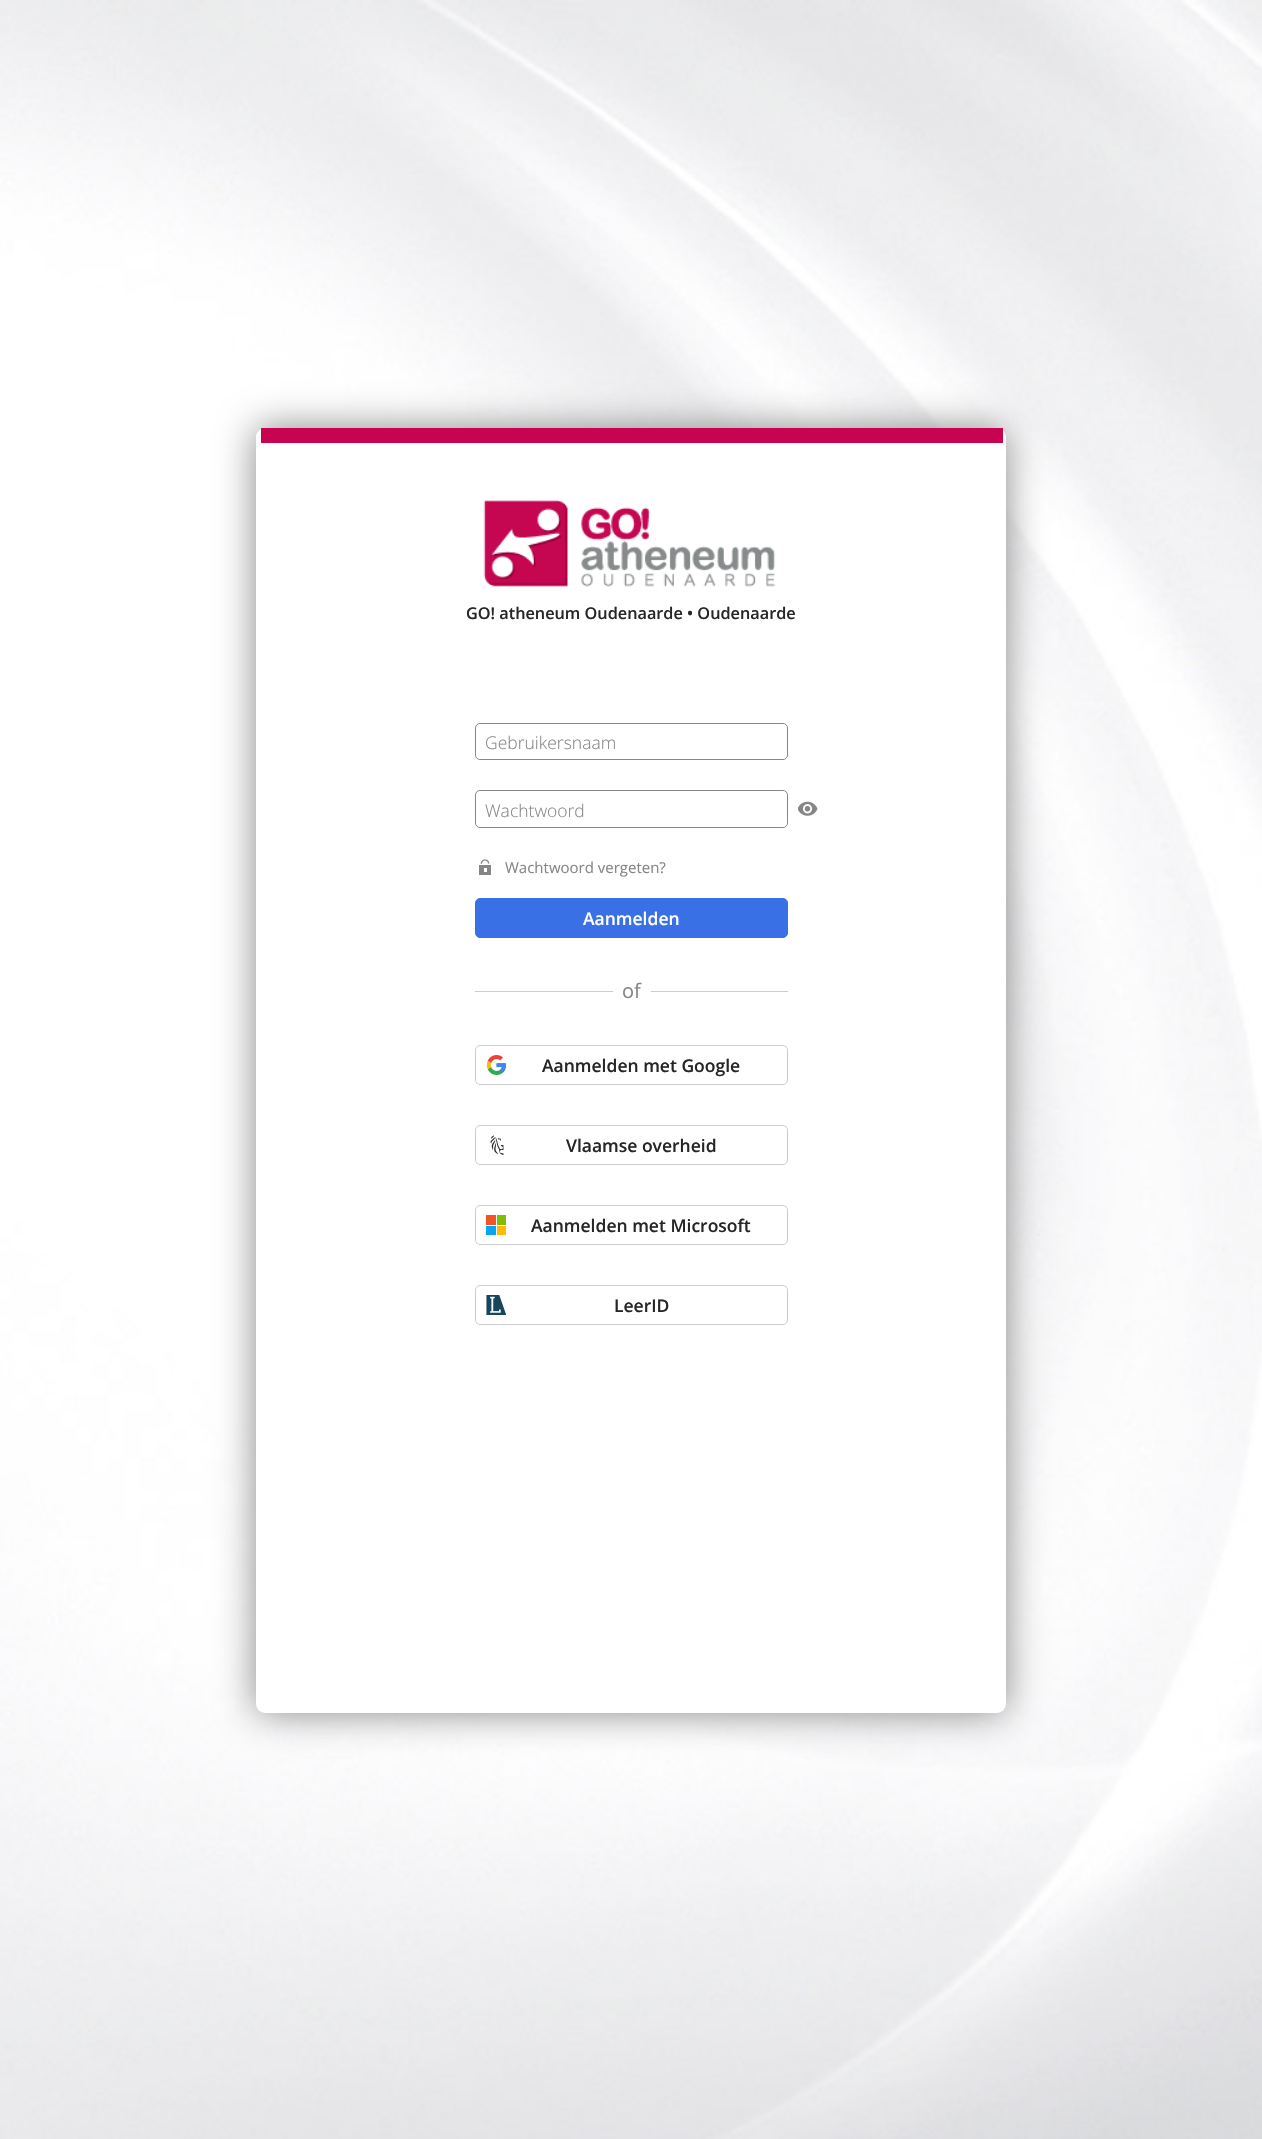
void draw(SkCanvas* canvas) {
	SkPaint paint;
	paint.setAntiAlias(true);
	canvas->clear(0xffffffff);
	canvas->drawImageRect(SkImages::DeferredFromEncodedData(SkData::MakeFromFileName("img1.png")), SkRect::MakeXYWH(0, 0, 1262, 2139), SkSamplingOptions());
	paint.setColor(0xff868686);
	paint.setMaskFilter(SkMaskFilter::MakeBlur(kNormal_SkBlurStyle, 19));
	canvas->drawRoundRect(SkRect::MakeXYWH(256, 428, 750, 1285), 9, 9, paint);
	paint.setMaskFilter(nullptr);
	paint.setColor(0xffffffff);
	canvas->drawRoundRect(SkRect::MakeXYWH(256, 428, 750, 1285), 9, 9, paint);
	paint.setColor(0xffc60450);
	canvas->drawRect(SkRect::MakeXYWH(261, 428, 742, 15), paint);
	canvas->drawImageRect(SkImages::DeferredFromEncodedData(SkData::MakeFromFileName("img2.png")), SkRect::MakeXYWH(483, 500, 293, 87), SkSamplingOptions());
	SkFont f1(fontMgr->matchFamilyStyle("Open Sans", SkFontStyle(600, SkFontStyle::kNormal_Width, SkFontStyle::kUpright_Slant)), 16.25);
	f1.setSubpixel(true);
	paint.setColor(0xff262626);
	canvas->drawString("GO! atheneum Oudenaarde • Oudenaarde", 466, 619, f1, paint);
	paint.setStroke(true);
	paint.setStrokeWidth(1);
	paint.setColor(0xff868686);
	canvas->drawRoundRect(SkRect::MakeXYWH(475.5, 723.5, 312, 36), 4.5, 4.5, paint);
	SkFont f2(fontMgr->matchFamilyStyle("Open Sans", SkFontStyle(300, SkFontStyle::kNormal_Width, SkFontStyle::kUpright_Slant)), 17.5);
	f2.setSubpixel(true);
	paint.setStroke(false);
	canvas->drawString("Gebruikersnaam", 485, 749, f2, paint);
	paint.setStroke(true);
	canvas->drawRoundRect(SkRect::MakeXYWH(475.5, 790.5, 312, 37), 4.5, 4.5, paint);
	paint.setStroke(false);
	canvas->drawString("Wachtwoord", 485, 817, f2, paint);
	canvas->drawImageRect(SkImages::DeferredFromEncodedData(SkData::MakeFromFileName("img3.png")), SkRect::MakeXYWH(798, 801, 20, 15), SkSamplingOptions());
	canvas->drawImageRect(SkImages::DeferredFromEncodedData(SkData::MakeFromFileName("img4.png")), SkRect::MakeXYWH(479, 859, 12, 16), SkSamplingOptions());
	SkFont f3(fontMgr->matchFamilyStyle("Open Sans", SkFontStyle::Normal()), 15);
	f3.setSubpixel(true);
	canvas->drawString("Wachtwoord vergeten?", 505, 873, f3, paint);
	paint.setColor(0xff3a70e6);
	canvas->drawRoundRect(SkRect::MakeXYWH(475.5, 898.5, 312, 39), 4.5, 4.5, paint);
	paint.setStroke(true);
	canvas->drawRoundRect(SkRect::MakeXYWH(475.5, 898.5, 312, 39), 4.5, 4.5, paint);
	SkFont f4(fontMgr->matchFamilyStyle("Open Sans", SkFontStyle(600, SkFontStyle::kNormal_Width, SkFontStyle::kUpright_Slant)), 17.5);
	f4.setSubpixel(true);
	paint.setStroke(false);
	paint.setColor(0xffffffff);
	canvas->drawString("Aanmelden", 583, 925, f4, paint);
	paint.setColor(0xffcccccc);
	canvas->drawRect(SkRect::MakeXYWH(475, 991, 138, 1), paint);
	SkFont f5(fontMgr->matchFamilyStyle("Open Sans", SkFontStyle::Normal()), 20);
	f5.setSubpixel(true);
	paint.setColor(0xff868686);
	canvas->drawString("of", 622, 998, f5, paint);
	paint.setColor(0xffcccccc);
	canvas->drawRect(SkRect::MakeXYWH(651, 991, 137, 1), paint);
	paint.setStroke(true);
	canvas->drawRoundRect(SkRect::MakeXYWH(475.5, 1045.5, 312, 39), 4.5, 4.5, paint);
	canvas->drawImageRect(SkImages::DeferredFromEncodedData(SkData::MakeFromFileName("img5.png")), SkRect::MakeXYWH(486, 1055, 20, 20), SkSamplingOptions());
	paint.setStroke(false);
	paint.setColor(0xff262626);
	canvas->drawString("Aanmelden met Google", 542, 1072, f4, paint);
	paint.setStroke(true);
	paint.setColor(0xffcccccc);
	canvas->drawRoundRect(SkRect::MakeXYWH(475.5, 1125.5, 312, 39), 4.5, 4.5, paint);
	canvas->drawImageRect(SkImages::DeferredFromEncodedData(SkData::MakeFromFileName("img6.png")), SkRect::MakeXYWH(490, 1135, 14, 20), SkSamplingOptions());
	paint.setStroke(false);
	paint.setColor(0xff262626);
	canvas->drawString("Vlaamse overheid", 566, 1152, f4, paint);
	paint.setStroke(true);
	paint.setColor(0xffcccccc);
	canvas->drawRoundRect(SkRect::MakeXYWH(475.5, 1205.5, 312, 39), 4.5, 4.5, paint);
	canvas->drawImageRect(SkImages::DeferredFromEncodedData(SkData::MakeFromFileName("img7.png")), SkRect::MakeXYWH(486, 1215, 20, 20), SkSamplingOptions());
	paint.setStroke(false);
	paint.setColor(0xff262626);
	canvas->drawString("Aanmelden met Microsoft", 531, 1232, f4, paint);
	paint.setStroke(true);
	paint.setColor(0xffcccccc);
	canvas->drawRoundRect(SkRect::MakeXYWH(475.5, 1285.5, 312, 39), 4.5, 4.5, paint);
	canvas->drawImageRect(SkImages::DeferredFromEncodedData(SkData::MakeFromFileName("img8.png")), SkRect::MakeXYWH(486, 1295, 20, 20), SkSamplingOptions());
	paint.setStroke(false);
	paint.setColor(0xff262626);
	canvas->drawString("LeerID", 614, 1312, f4, paint);
}
